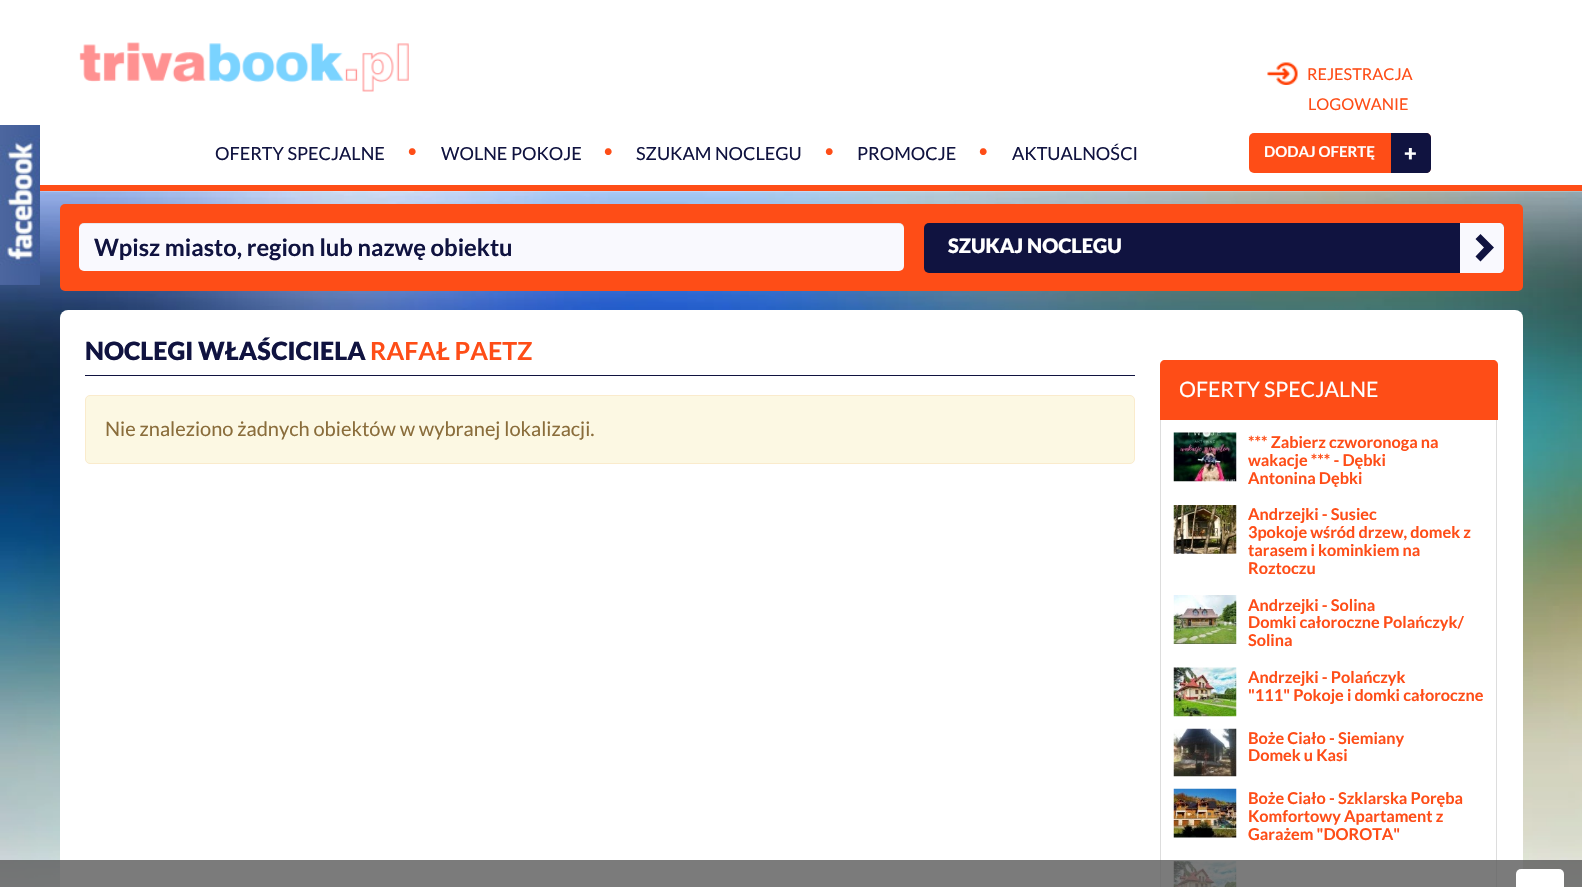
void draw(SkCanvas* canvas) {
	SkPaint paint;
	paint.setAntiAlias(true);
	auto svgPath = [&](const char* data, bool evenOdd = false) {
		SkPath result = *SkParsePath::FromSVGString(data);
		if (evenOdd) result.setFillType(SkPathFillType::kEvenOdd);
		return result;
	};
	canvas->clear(0xffffffff);
	paint.setColor(0xfffe4d17);
	canvas->drawRect(SkRect::MakeXYWH(40, 185, 1542, 6), paint);
	canvas->drawImageRect(SkImages::DeferredFromEncodedData(SkData::MakeFromFileName("img1.png")), SkRect::MakeXYWH(79, 42, 330, 50), SkSamplingOptions());
	SkFont f1(fontMgr->matchFamilyStyle("Lato", SkFontStyle::Normal()), 18.1);
	f1.setSubpixel(true);
	paint.setColor(0xff101340);
	canvas->drawString("OFERTY SPECJALNE", 215, 160, f1, paint);
	SkFont f2(fontMgr->matchFamilyStyle("Lato", SkFontStyle::Normal()), 18);
	f2.setSubpixel(true);
	paint.setColor(0xfffe4d17);
	canvas->drawString("•", 407, 157, f2, paint);
	paint.setColor(0xff101340);
	canvas->drawString("WOLNE POKOJE", 441, 160, f1, paint);
	paint.setColor(0xfffe4d17);
	canvas->drawString("•", 603, 157, f2, paint);
	paint.setColor(0xff101340);
	canvas->drawString("SZUKAM NOCLEGU", 636, 160, f1, paint);
	paint.setColor(0xfffe4d17);
	canvas->drawString("•", 824, 157, f2, paint);
	paint.setColor(0xff101340);
	canvas->drawString("PROMOCJE", 857, 160, f1, paint);
	paint.setColor(0xfffe4d17);
	canvas->drawString("•", 978, 157, f2, paint);
	paint.setColor(0xff101340);
	canvas->drawString("AKTUALNOŚCI", 1012, 160, f1, paint);
	canvas->drawImageRect(SkImages::DeferredFromEncodedData(SkData::MakeFromFileName("img2.png")), SkRect::MakeXYWH(1267, 62, 31, 23), SkSamplingOptions());
	SkFont f3(fontMgr->matchFamilyStyle("Lato", SkFontStyle::Normal()), 16.25);
	f3.setSubpixel(true);
	paint.setColor(0xfffe4d17);
	canvas->drawString("REJESTRACJA", 1307, 80, f3, paint);
	canvas->drawString("LOGOWANIE", 1308, 110, f3, paint);
	canvas->drawRoundRect(SkRect::MakeXYWH(1249, 133, 182, 40), 5, 5, paint);
	SkFont f4(fontMgr->matchFamilyStyle("Lato", SkFontStyle::Bold()), 15);
	f4.setSubpixel(true);
	paint.setColor(0xffffffff);
	canvas->drawString("DODAJ OFERTĘ", 1264, 157, f4, paint);
	paint.setColor(0xff101340);
	canvas->drawPath(svgPath("M1391 133H1426C1429 133 1431 135 1431 138V168C1431 171 1429 173 1426 173H1391Z"), paint);
	SkFont f5(fontMgr->matchFamilyStyle("Lato", SkFontStyle(900, SkFontStyle::kNormal_Width, SkFontStyle::kUpright_Slant)), 22);
	f5.setSubpixel(true);
	paint.setColor(0xffffffff);
	canvas->drawString("+", 1404, 161, f5, paint);
	canvas->drawImageRect(SkImages::DeferredFromEncodedData(SkData::MakeFromFileName("img4.png")), SkRect::MakeXYWH(0, 191, 1582, 696), SkSamplingOptions());
	canvas->drawImageRect(SkImages::DeferredFromEncodedData(SkData::MakeFromFileName("img3.png")), SkRect::MakeXYWH(0, 125, 40, 160), SkSamplingOptions());
	paint.setColor(0xfffe4d17);
	canvas->drawRoundRect(SkRect::MakeXYWH(60, 204, 1463, 87), 5, 5, paint);
	paint.setColor(0xfff9f9fe);
	canvas->drawRoundRect(SkRect::MakeXYWH(79, 223, 825, 48), 5, 5, paint);
	paint.setColor(0x12000000);
	canvas->drawPath(svgPath("M84 224H899C902 224 904 226 904 229V228C904 225 902 223 899 223H84C81 223 79 225 79 228V229C79 226 81 224 84 224Z"), paint);
	SkFont f6(fontMgr->matchFamilyStyle("Lato", SkFontStyle::Bold()), 23.75);
	f6.setSubpixel(true);
	paint.setColor(0xff101340);
	canvas->drawString("Wpisz miasto, region lub nazwę obiektu", 94, 256, f6, paint);
	canvas->drawRoundRect(SkRect::MakeXYWH(924, 223, 580, 50), 5, 5, paint);
	SkFont f7(fontMgr->matchFamilyStyle("Lato", SkFontStyle(900, SkFontStyle::kNormal_Width, SkFontStyle::kUpright_Slant)), 20);
	f7.setSubpixel(true);
	paint.setColor(0xffffffff);
	canvas->drawString("SZUKAJ NOCLEGU", 948, 253, f7, paint);
	paint.setColor(0xfff9f9fe);
	canvas->drawPath(svgPath("M1460 223H1499C1502 223 1504 225 1504 228V268C1504 271 1502 273 1499 273H1460Z"), paint);
	paint.setColor(0xff101340);
	canvas->drawPath(svgPath("M1494 247.5L1480.5 261.5L1475.5 256.5L1484 247.5L1475.5 239L1480.5 234Z"), paint);
	paint.setColor(0xffffffff);
	canvas->drawRoundRect(SkRect::MakeXYWH(60, 310, 1463, 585), 8, 8, paint);
	paint.setColor(0xff101340);
	canvas->drawRect(SkRect::MakeXYWH(85, 375, 1050, 1), paint);
	SkFont f8(fontMgr->matchFamilyStyle("Lato", SkFontStyle(900, SkFontStyle::kNormal_Width, SkFontStyle::kUpright_Slant)), 25);
	f8.setSubpixel(true);
	canvas->drawString("NOCLEGI WŁAŚCICIELA", 85, 360, f8, paint);
	SkFont f9(fontMgr->matchFamilyStyle("Lato", SkFontStyle::Bold()), 25);
	f9.setSubpixel(true);
	paint.setColor(0xfffe4d17);
	canvas->drawString("RAFAŁ PAETZ", 370, 360, f9, paint);
	paint.setColor(0xfffcf8e3);
	canvas->drawRoundRect(SkRect::MakeXYWH(85.5, 395.5, 1049, 68), 4.5, 4.5, paint);
	paint.setStroke(true);
	paint.setStrokeWidth(1);
	paint.setColor(0xfffaebcc);
	canvas->drawRoundRect(SkRect::MakeXYWH(85.5, 395.5, 1049, 68), 4.5, 4.5, paint);
	SkFont f10(fontMgr->matchFamilyStyle("Lato", SkFontStyle::Normal()), 20);
	f10.setSubpixel(true);
	paint.setStroke(false);
	paint.setColor(0xff8a6d3b);
	canvas->drawString("Nie znaleziono żadnych obiektów w wybranej lokalizacji.", 105, 436, f10, paint);
	paint.setColor(0xfffe4d17);
	canvas->drawPath(svgPath("M1165 360H1493C1496 360 1498 362 1498 365V420H1160V365C1160 362 1162 360 1165 360Z"), paint);
	SkFont f11(fontMgr->matchFamilyStyle("Lato", SkFontStyle::Normal()), 21.25);
	f11.setSubpixel(true);
	paint.setColor(0xffffffff);
	canvas->drawString("OFERTY SPECJALNE", 1179, 397, f11, paint);
	paint.setColor(0xffdddddd);
	canvas->drawRect(SkRect::MakeXYWH(1496, 420, 1, 467), paint);
	canvas->drawRect(SkRect::MakeXYWH(1160, 420, 1, 467), paint);
	canvas->drawImageRect(SkImages::DeferredFromEncodedData(SkData::MakeFromFileName("img5.png")), SkRect::MakeXYWH(1173, 432, 64, 50), SkSamplingOptions());
	SkFont f12(fontMgr->matchFamilyStyle("Lato", SkFontStyle::Bold()), 16.25);
	f12.setSubpixel(true);
	paint.setColor(0xfffe4d17);
	canvas->drawString("*** Zabierz czworonoga na", 1248, 448, f12, paint);
	canvas->drawString("wakacje *** - Dębki", 1248, 466, f12, paint);
	canvas->drawString("Antonina Dębki", 1248, 484, f12, paint);
	canvas->drawImageRect(SkImages::DeferredFromEncodedData(SkData::MakeFromFileName("img6.png")), SkRect::MakeXYWH(1173, 505, 64, 49), SkSamplingOptions());
	canvas->drawString("Andrzejki - Susiec", 1248, 520, f12, paint);
	canvas->drawString("3pokoje wśród drzew, domek z", 1248, 538, f12, paint);
	canvas->drawString("tarasem i kominkiem na", 1248, 556, f12, paint);
	canvas->drawString("Roztoczu", 1248, 574, f12, paint);
	canvas->drawImageRect(SkImages::DeferredFromEncodedData(SkData::MakeFromFileName("img7.png")), SkRect::MakeXYWH(1173, 595, 64, 49), SkSamplingOptions());
	canvas->drawString("Andrzejki - Solina", 1248, 611, f12, paint);
	canvas->drawString("Domki całoroczne Polańczyk/", 1248, 628, f12, paint);
	canvas->drawString("Solina", 1248, 646, f12, paint);
	canvas->drawImageRect(SkImages::DeferredFromEncodedData(SkData::MakeFromFileName("img8.png")), SkRect::MakeXYWH(1173, 667, 64, 50), SkSamplingOptions());
	canvas->drawString("Andrzejki - Polańczyk", 1248, 683, f12, paint);
	canvas->drawString("\"111\" Pokoje i domki całoroczne", 1248, 701, f12, paint);
	canvas->drawImageRect(SkImages::DeferredFromEncodedData(SkData::MakeFromFileName("img9.png")), SkRect::MakeXYWH(1173, 728, 64, 49), SkSamplingOptions());
	canvas->drawString("Boże Ciało - Siemiany", 1248, 744, f12, paint);
	canvas->drawString("Domek u Kasi", 1248, 761, f12, paint);
	canvas->drawImageRect(SkImages::DeferredFromEncodedData(SkData::MakeFromFileName("img10.png")), SkRect::MakeXYWH(1173, 788, 64, 50), SkSamplingOptions());
	canvas->drawString("Boże Ciało - Szklarska Poręba", 1248, 804, f12, paint);
	canvas->drawString("Komfortowy Apartament z", 1248, 822, f12, paint);
	canvas->drawString("Garażem \"DOROTA\"", 1248, 840, f12, paint);
	canvas->drawImageRect(SkImages::DeferredFromEncodedData(SkData::MakeFromFileName("img11.png")), SkRect::MakeXYWH(1173, 861, 64, 26), SkSamplingOptions());
	paint.setColor(0xcc5a5a5a);
	canvas->drawRect(SkRect::MakeXYWH(0, 860, 1582, 27), paint);
	paint.setColor(0xffffffff);
	canvas->drawRoundRect(SkRect::MakeXYWH(1516, 869, 48, 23), 5, 5, paint);
}
